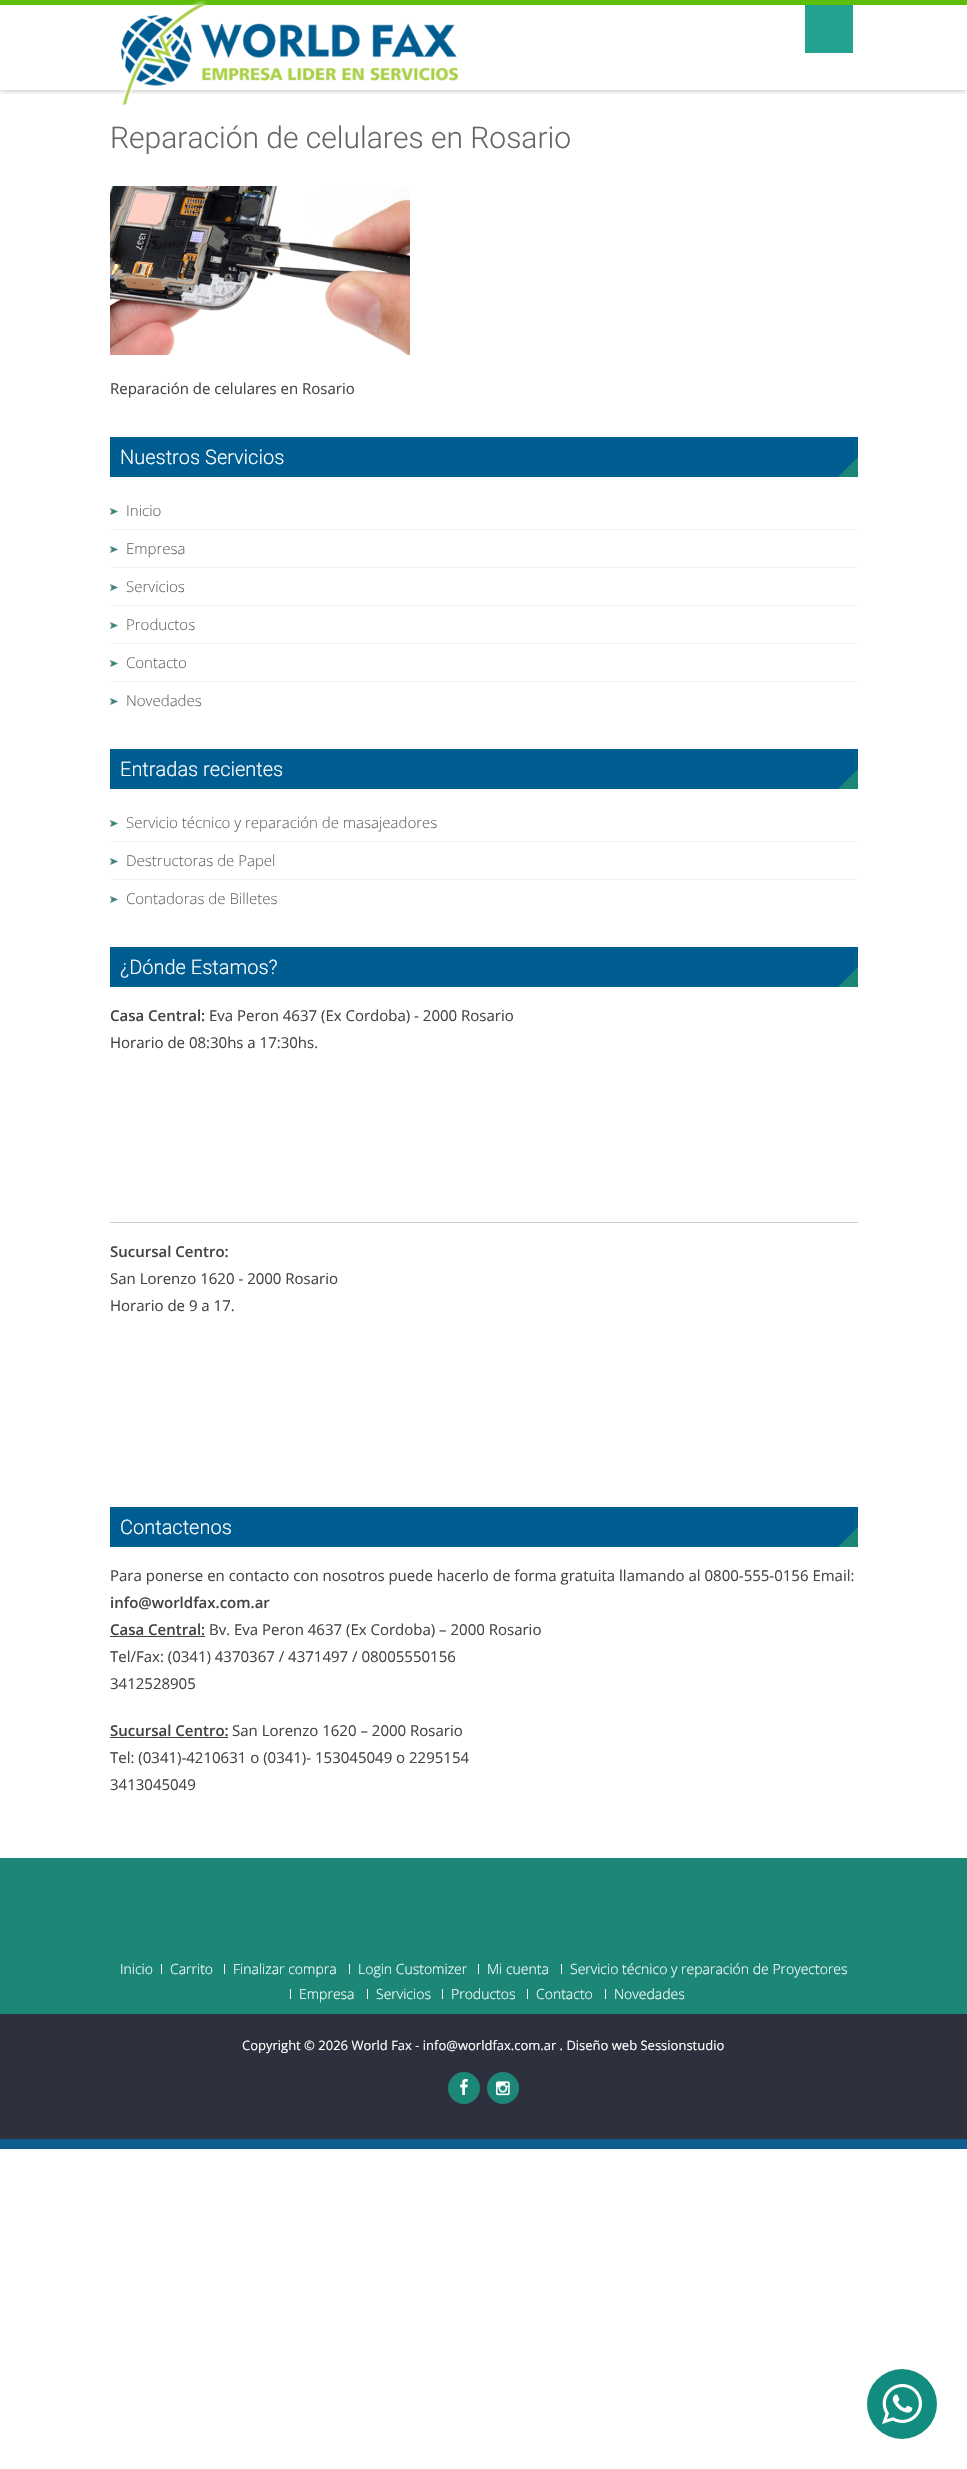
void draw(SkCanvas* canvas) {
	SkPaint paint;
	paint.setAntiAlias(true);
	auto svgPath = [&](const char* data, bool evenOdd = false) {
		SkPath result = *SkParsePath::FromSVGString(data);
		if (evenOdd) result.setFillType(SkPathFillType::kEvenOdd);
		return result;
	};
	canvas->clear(0xffffffff);
	canvas->save();
	canvas->clipRect(SkRect::MakeXYWH(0, 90, 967, 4));
	paint.setColor(0x4d000000);
	paint.setMaskFilter(SkMaskFilter::MakeBlur(kNormal_SkBlurStyle, 3));
	canvas->drawRect(SkRect::MakeXYWH(0, 0, 967, 90), paint);
	paint.setMaskFilter(nullptr);
	canvas->restore();
	paint.setColor(0xff5cbe06);
	canvas->drawRect(SkRect::MakeXYWH(0, 0, 967, 5), paint);
	canvas->drawImageRect(SkImages::DeferredFromEncodedData(SkData::MakeFromFileName("img1.png")), SkRect::MakeXYWH(121, 0, 337, 105), SkSamplingOptions());
	paint.setColor(0xff23a38f);
	canvas->drawRect(SkRect::MakeXYWH(805, 5, 48, 48), paint);
	SkFont f1(fontMgr->matchFamilyStyle("Roboto", SkFontStyle(300, SkFontStyle::kNormal_Width, SkFontStyle::kUpright_Slant)), 30);
	f1.setSubpixel(true);
	paint.setColor(0xff666666);
	canvas->drawString("Reparación de celulares en Rosario", 110, 148, f1, paint);
	canvas->drawImageRect(SkImages::DeferredFromEncodedData(SkData::MakeFromFileName("img2.png")), SkRect::MakeXYWH(110, 186, 300, 169), SkSamplingOptions());
	SkFont f2(fontMgr->matchFamilyStyle("Open Sans", SkFontStyle::Normal()), 15);
	f2.setSubpixel(true);
	paint.setColor(0xff444444);
	canvas->drawString("Reparación de celulares en Rosario", 110, 394, f2, paint);
	paint.setColor(0xff005d92);
	canvas->drawRect(SkRect::MakeXYWH(110, 437, 748, 40), paint);
	SkFont f3(fontMgr->matchFamilyStyle("Roboto", SkFontStyle(300, SkFontStyle::kNormal_Width, SkFontStyle::kUpright_Slant)), 20);
	f3.setSubpixel(true);
	paint.setColor(0xffffffff);
	canvas->drawString("Nuestros Servicios", 120, 464, f3, paint);
	paint.setColor(0xff1c8776);
	canvas->drawPath(svgPath("M858 457V477L848 467Z"), paint);
	canvas->drawPath(svgPath("M858 477H838L848 467Z"), paint);
	canvas->drawImageRect(SkImages::DeferredFromEncodedData(SkData::MakeFromFileName("img3.png")), SkRect::MakeXYWH(110, 508, 8, 7), SkSamplingOptions());
	paint.setColor(0xfff2f2f2);
	canvas->drawRect(SkRect::MakeXYWH(110, 529, 748, 1), paint);
	SkFont f4(fontMgr->matchFamilyStyle("Open Sans", SkFontStyle(300, SkFontStyle::kNormal_Width, SkFontStyle::kUpright_Slant)), 15);
	f4.setSubpixel(true);
	paint.setColor(0xff666666);
	canvas->drawString("Inicio", 126, 516, f4, paint);
	canvas->drawImageRect(SkImages::DeferredFromEncodedData(SkData::MakeFromFileName("img3.png")), SkRect::MakeXYWH(110, 546, 8, 7), SkSamplingOptions());
	paint.setColor(0xfff2f2f2);
	canvas->drawRect(SkRect::MakeXYWH(110, 567, 748, 1), paint);
	paint.setColor(0xff666666);
	canvas->drawString("Empresa", 126, 554, f4, paint);
	canvas->drawImageRect(SkImages::DeferredFromEncodedData(SkData::MakeFromFileName("img3.png")), SkRect::MakeXYWH(110, 584, 8, 7), SkSamplingOptions());
	paint.setColor(0xfff2f2f2);
	canvas->drawRect(SkRect::MakeXYWH(110, 605, 748, 1), paint);
	paint.setColor(0xff666666);
	canvas->drawString("Servicios", 126, 592, f4, paint);
	canvas->drawImageRect(SkImages::DeferredFromEncodedData(SkData::MakeFromFileName("img3.png")), SkRect::MakeXYWH(110, 622, 8, 7), SkSamplingOptions());
	paint.setColor(0xfff2f2f2);
	canvas->drawRect(SkRect::MakeXYWH(110, 643, 748, 1), paint);
	paint.setColor(0xff666666);
	canvas->drawString("Productos", 126, 630, f4, paint);
	canvas->drawImageRect(SkImages::DeferredFromEncodedData(SkData::MakeFromFileName("img3.png")), SkRect::MakeXYWH(110, 660, 8, 7), SkSamplingOptions());
	paint.setColor(0xfff2f2f2);
	canvas->drawRect(SkRect::MakeXYWH(110, 681, 748, 1), paint);
	paint.setColor(0xff666666);
	canvas->drawString("Contacto", 126, 668, f4, paint);
	canvas->drawImageRect(SkImages::DeferredFromEncodedData(SkData::MakeFromFileName("img3.png")), SkRect::MakeXYWH(110, 698, 8, 7), SkSamplingOptions());
	canvas->drawString("Novedades", 126, 706, f4, paint);
	paint.setColor(0xff005d92);
	canvas->drawRect(SkRect::MakeXYWH(110, 749, 748, 40), paint);
	paint.setColor(0xffffffff);
	canvas->drawString("Entradas recientes", 120, 776, f3, paint);
	paint.setColor(0xff1c8776);
	canvas->drawPath(svgPath("M858 769V789L848 779Z"), paint);
	canvas->drawPath(svgPath("M858 789H838L848 779Z"), paint);
	canvas->drawImageRect(SkImages::DeferredFromEncodedData(SkData::MakeFromFileName("img3.png")), SkRect::MakeXYWH(110, 820, 8, 7), SkSamplingOptions());
	paint.setColor(0xfff2f2f2);
	canvas->drawRect(SkRect::MakeXYWH(110, 841, 748, 1), paint);
	paint.setColor(0xff666666);
	canvas->drawString("Servicio técnico y reparación de masajeadores", 126, 828, f4, paint);
	canvas->drawImageRect(SkImages::DeferredFromEncodedData(SkData::MakeFromFileName("img3.png")), SkRect::MakeXYWH(110, 858, 8, 7), SkSamplingOptions());
	paint.setColor(0xfff2f2f2);
	canvas->drawRect(SkRect::MakeXYWH(110, 879, 748, 1), paint);
	paint.setColor(0xff666666);
	canvas->drawString("Destructoras de Papel", 126, 866, f4, paint);
	canvas->drawImageRect(SkImages::DeferredFromEncodedData(SkData::MakeFromFileName("img3.png")), SkRect::MakeXYWH(110, 896, 8, 7), SkSamplingOptions());
	canvas->drawString("Contadoras de Billetes", 126, 904, f4, paint);
	paint.setColor(0xff005d92);
	canvas->drawRect(SkRect::MakeXYWH(110, 947, 748, 40), paint);
	paint.setColor(0xffffffff);
	canvas->drawString("¿Dónde Estamos?", 120, 974, f3, paint);
	paint.setColor(0xff1c8776);
	canvas->drawPath(svgPath("M858 967V987L848 977Z"), paint);
	canvas->drawPath(svgPath("M858 987H838L848 977Z"), paint);
	SkFont f5(fontMgr->matchFamilyStyle("Open Sans", SkFontStyle(600, SkFontStyle::kNormal_Width, SkFontStyle::kUpright_Slant)), 15);
	f5.setSubpixel(true);
	paint.setColor(0xff444444);
	canvas->drawString("Casa Central:", 110, 1021, f5, paint);
	canvas->drawString("Eva Peron 4637 (Ex Cordoba) - 2000 Rosario", 209, 1021, f2, paint);
	canvas->drawString("Horario de 08:30hs a 17:30hs.", 110, 1048, f2, paint);
	paint.setColor(0xffcccccc);
	canvas->drawRect(SkRect::MakeXYWH(110, 1222, 748, 1), paint);
	paint.setColor(0xff444444);
	canvas->drawString("Sucursal Centro:", 110, 1257, f5, paint);
	canvas->drawString("San Lorenzo 1620 - 2000 Rosario", 110, 1284, f2, paint);
	canvas->drawString("Horario de 9 a 17.", 110, 1311, f2, paint);
	paint.setColor(0xff005d92);
	canvas->drawRect(SkRect::MakeXYWH(110, 1507, 748, 40), paint);
	paint.setColor(0xffffffff);
	canvas->drawString("Contactenos", 120, 1534, f3, paint);
	paint.setColor(0xff1c8776);
	canvas->drawPath(svgPath("M858 1527V1547L848 1537Z"), paint);
	canvas->drawPath(svgPath("M858 1547H838L848 1537Z"), paint);
	paint.setColor(0xff444444);
	canvas->drawString("Para ponerse en contacto con nosotros puede hacerlo de forma gratuita llamando al 0800-555-0156 Email:", 110, 1581, f2, paint);
	canvas->drawString("info@worldfax.com.ar", 110, 1608, f5, paint);
	canvas->drawString("Casa Central:", 110, 1635, f5, paint);
	canvas->drawRect(SkRect::MakeXYWH(110, 1636, 95, 1), paint);
	canvas->drawString("Bv. Eva Peron 4637 (Ex Cordoba) – 2000 Rosario", 209, 1635, f2, paint);
	canvas->drawString("Tel/Fax: (0341) 4370367 / 4371497 / 08005550156", 110, 1662, f2, paint);
	canvas->drawString("3412528905", 110, 1689, f2, paint);
	canvas->drawString("Sucursal Centro:", 110, 1736, f5, paint);
	canvas->drawRect(SkRect::MakeXYWH(110, 1737, 118, 1), paint);
	canvas->drawString("San Lorenzo 1620 – 2000 Rosario", 232, 1736, f2, paint);
	canvas->drawString("Tel: (0341)-4210631 o (0341)- 153045049 o 2295154", 110, 1763, f2, paint);
	canvas->drawString("3413045049", 110, 1790, f2, paint);
	paint.setColor(0xff1c8776);
	canvas->drawRect(SkRect::MakeXYWH(0, 1858, 967, 156), paint);
	SkFont f6(fontMgr->matchFamilyStyle("Open Sans", SkFontStyle(300, SkFontStyle::kNormal_Width, SkFontStyle::kUpright_Slant)), 14);
	f6.setSubpixel(true);
	paint.setColor(0xffffffff);
	canvas->drawString("Inicio", 120, 1974, f6, paint);
	canvas->drawRect(SkRect::MakeXYWH(161, 1964, 1, 10), paint);
	canvas->drawString("Carrito", 170, 1974, f6, paint);
	canvas->drawRect(SkRect::MakeXYWH(224, 1964, 1, 10), paint);
	canvas->drawString("Finalizar compra", 233, 1974, f6, paint);
	canvas->drawRect(SkRect::MakeXYWH(349, 1964, 1, 10), paint);
	canvas->drawString("Login Customizer", 358, 1974, f6, paint);
	canvas->drawRect(SkRect::MakeXYWH(478, 1964, 1, 10), paint);
	canvas->drawString("Mi cuenta", 487, 1974, f6, paint);
	canvas->drawRect(SkRect::MakeXYWH(561, 1964, 1, 10), paint);
	canvas->drawString("Servicio técnico y reparación de Proyectores", 570, 1974, f6, paint);
	canvas->drawRect(SkRect::MakeXYWH(290, 1989, 1, 10), paint);
	canvas->drawString("Empresa", 299, 1999, f6, paint);
	canvas->drawRect(SkRect::MakeXYWH(367, 1989, 1, 10), paint);
	canvas->drawString("Servicios", 376, 1999, f6, paint);
	canvas->drawRect(SkRect::MakeXYWH(442, 1989, 1, 10), paint);
	canvas->drawString("Productos", 451, 1999, f6, paint);
	canvas->drawRect(SkRect::MakeXYWH(527, 1989, 1, 10), paint);
	canvas->drawString("Contacto", 536, 1999, f6, paint);
	canvas->drawRect(SkRect::MakeXYWH(605, 1989, 1, 10), paint);
	canvas->drawString("Novedades", 614, 1999, f6, paint);
	paint.setColor(0xff2e313d);
	canvas->drawRect(SkRect::MakeXYWH(0, 2014, 967, 125), paint);
	SkFont f7(fontMgr->matchFamilyStyle("Open Sans", SkFontStyle::Normal()), 13);
	f7.setSubpixel(true);
	paint.setColor(0xffffffff);
	canvas->drawString("Copyright © 2026 World Fax - info@worldfax.com.ar . Diseño web Sessionstudio", 242, 2050, f7, paint);
	paint.setColor(0xff1c8776);
	canvas->drawCircle(464, 2088, 16, paint);
	canvas->drawImageRect(SkImages::DeferredFromEncodedData(SkData::MakeFromFileName("img4.png")), SkRect::MakeXYWH(460, 2079, 8, 16), SkSamplingOptions());
	canvas->drawCircle(503, 2088, 16, paint);
	canvas->drawImageRect(SkImages::DeferredFromEncodedData(SkData::MakeFromFileName("img5.png")), SkRect::MakeXYWH(496, 2081, 14, 15), SkSamplingOptions());
	paint.setColor(0xff0d5e8e);
	canvas->drawRect(SkRect::MakeXYWH(0, 2139, 967, 10), paint);
	paint.setColor(0xff118c7e);
	canvas->drawCircle(902, 2404, 35, paint);
	canvas->drawImageRect(SkImages::DeferredFromEncodedData(SkData::MakeFromFileName("img6.png")), SkRect::MakeXYWH(882, 2384, 40, 40), SkSamplingOptions());
}
